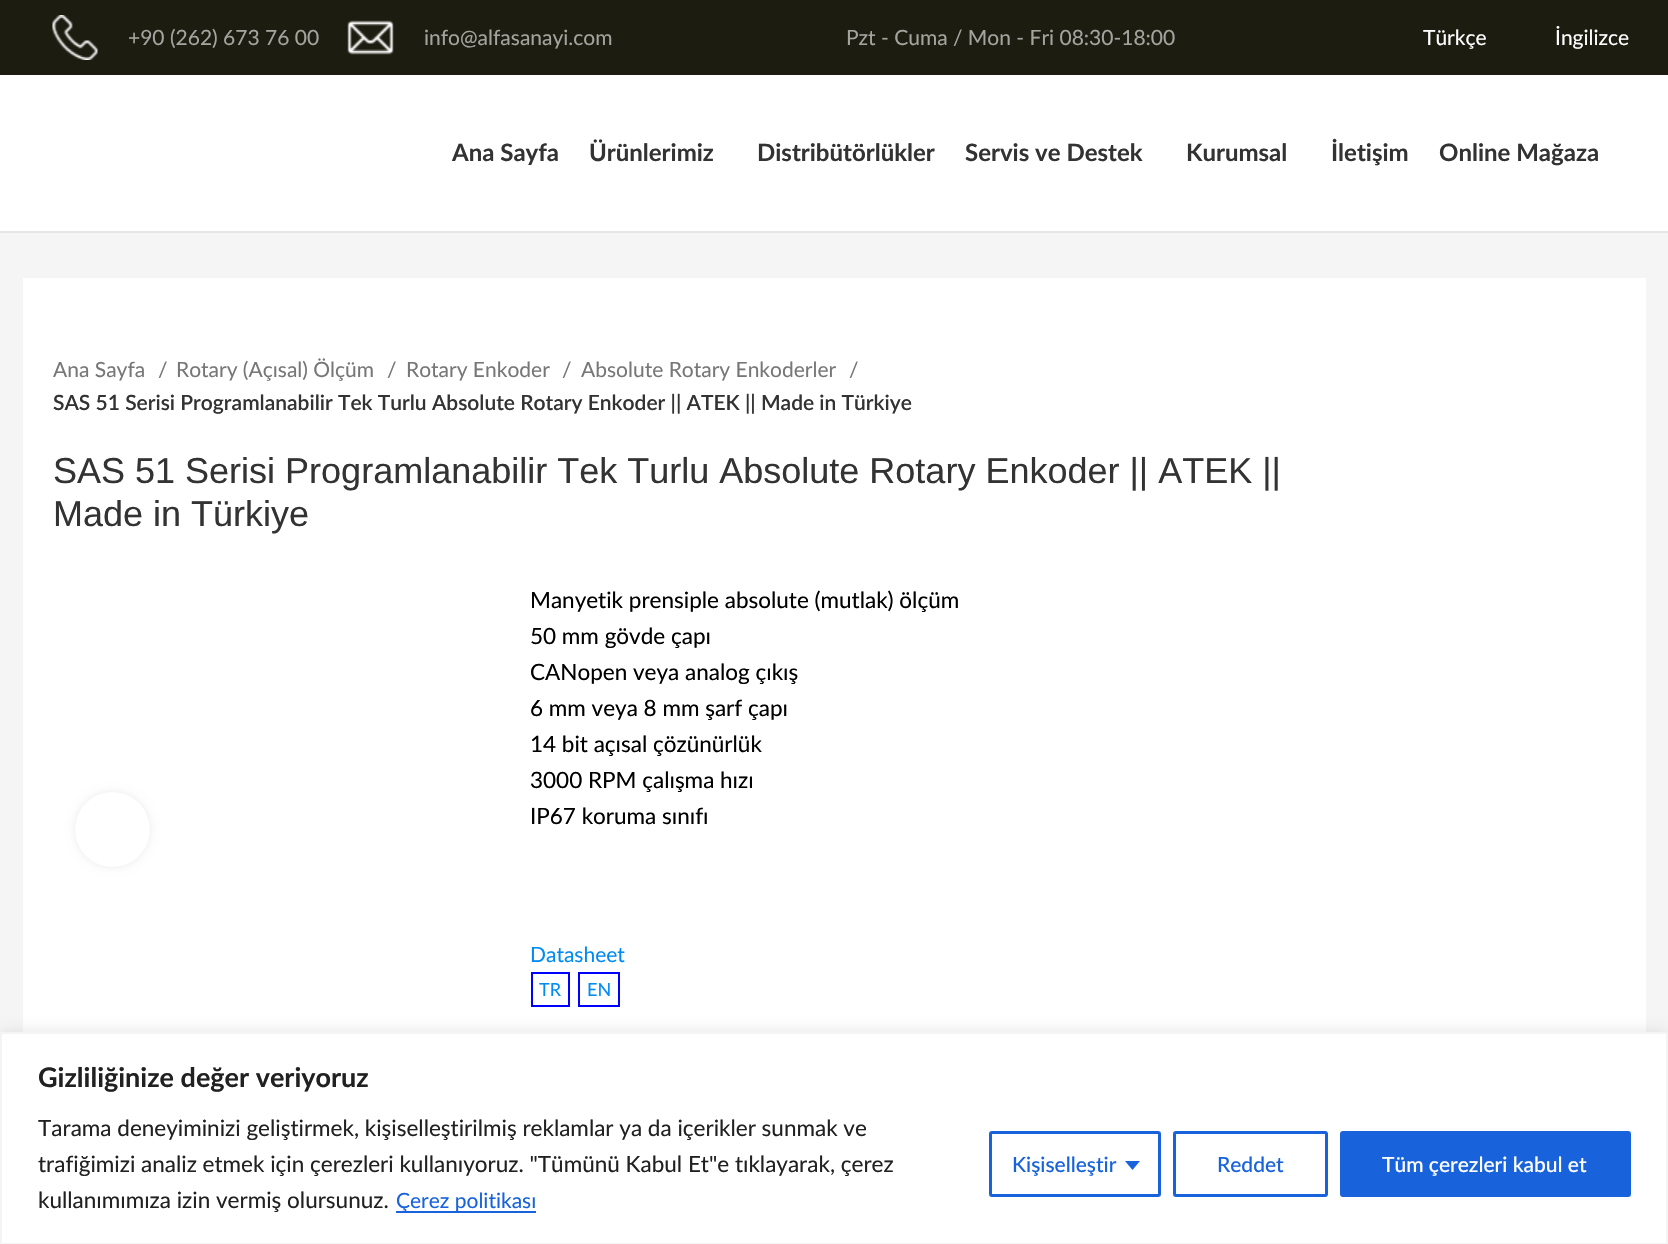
void draw(SkCanvas* canvas) {
	SkPaint paint;
	paint.setAntiAlias(true);
	auto svgPath = [&](const char* data, bool evenOdd = false) {
		SkPath result = *SkParsePath::FromSVGString(data);
		if (evenOdd) result.setFillType(SkPathFillType::kEvenOdd);
		return result;
	};
	canvas->clear(0xffffffff);
	paint.setColor(0xff1c1c10);
	canvas->drawRect(SkRect::MakeXYWH(0, 0, 1668, 75), paint);
	canvas->drawImageRect(SkImages::DeferredFromEncodedData(SkData::MakeFromFileName("img1.png")), SkRect::MakeXYWH(52, 15, 46, 45), SkSamplingOptions());
	SkFont f1(fontMgr->matchFamilyStyle("Lato", SkFontStyle::Normal()), 21);
	f1.setSubpixel(true);
	paint.setColor(0xffa4a49f);
	canvas->drawString("+90 (262) 673 76 00", 128, 45, f1, paint);
	canvas->drawImageRect(SkImages::DeferredFromEncodedData(SkData::MakeFromFileName("img2.png")), SkRect::MakeXYWH(347, 20, 47, 35), SkSamplingOptions());
	canvas->drawString("info@alfasanayi.com", 424, 45, f1, paint);
	canvas->drawString("Pzt - Cuma / Mon - Fri 08:30-18:00", 846, 45, f1, paint);
	paint.setColor(0xffffffff);
	canvas->drawString("Türkçe", 1423, 45, f1, paint);
	canvas->drawString("İngilizce", 1555, 45, f1, paint);
	paint.setColor(0xffe6e6e6);
	canvas->drawRect(SkRect::MakeXYWH(0, 231, 1668, 2), paint);
	SkFont f2(fontMgr->matchFamilyStyle("Lato", SkFontStyle::Bold()), 24);
	f2.setSubpixel(true);
	paint.setColor(0xff333333);
	canvas->drawString("Ana Sayfa", 452, 161, f2, paint);
	canvas->drawString("Ürünlerimiz", 589, 161, f2, paint);
	canvas->drawString("Distribütörlükler", 757, 161, f2, paint);
	canvas->drawString("Servis ve Destek", 965, 161, f2, paint);
	canvas->drawString("Kurumsal", 1186, 161, f2, paint);
	canvas->drawString("İletişim", 1331, 161, f2, paint);
	canvas->drawString("Online Mağaza", 1439, 161, f2, paint);
	paint.setColor(0xfff5f5f5);
	canvas->drawRect(SkRect::MakeXYWH(0, 233, 1668, 799), paint);
	paint.setColor(0xffffffff);
	canvas->drawRect(SkRect::MakeXYWH(23, 278, 1623, 754), paint);
	paint.setColor(0xff777777);
	canvas->drawString("Ana Sayfa", 53, 377, f1, paint);
	canvas->drawString("/", 158, 377, f1, paint);
	canvas->drawString("Rotary (Açısal) Ölçüm", 176, 377, f1, paint);
	canvas->drawString("/", 387, 377, f1, paint);
	canvas->drawString("Rotary Enkoder", 406, 377, f1, paint);
	canvas->drawString("/", 562, 377, f1, paint);
	canvas->drawString("Absolute Rotary Enkoderler", 581, 377, f1, paint);
	canvas->drawString("/", 849, 377, f1, paint);
	SkFont f3(fontMgr->matchFamilyStyle("Lato", SkFontStyle(600, SkFontStyle::kNormal_Width, SkFontStyle::kUpright_Slant)), 21);
	f3.setSubpixel(true);
	paint.setColor(0xff333333);
	canvas->drawString("SAS 51 Serisi Programlanabilir Tek Turlu Absolute Rotary Enkoder || ATEK || Made in Türkiye", 53, 410, f3, paint);
	SkFont f4(fontMgr->matchFamilyStyle("Liberation Sans", SkFontStyle::Normal()), 36);
	f4.setSubpixel(true);
	canvas->drawString("SAS 51 Serisi Programlanabilir Tek Turlu Absolute Rotary Enkoder || ATEK ||", 53, 483, f4, paint);
	canvas->drawString("Made in Türkiye", 53, 526, f4, paint);
	paint.setColor(0x14000000);
	paint.setMaskFilter(SkMaskFilter::MakeBlur(kNormal_SkBlurStyle, 4));
	canvas->drawRoundRect(SkRect::MakeXYWH(75, 792, 75, 75), 37.5, 37.5, paint);
	paint.setMaskFilter(nullptr);
	paint.setColor(0xffffffff);
	canvas->drawCircle(112.5, 829.5, 37.5, paint);
	SkFont f5(fontMgr->matchFamilyStyle("Lato", SkFontStyle::Normal()), 22.5);
	f5.setSubpixel(true);
	paint.setColor(0xff000000);
	canvas->drawString("Manyetik prensiple absolute (mutlak) ölçüm", 530, 608, f5, paint);
	canvas->drawString("50 mm gövde çapı", 530, 644, f5, paint);
	canvas->drawString("CANopen veya analog çıkış", 530, 680, f5, paint);
	canvas->drawString("6 mm veya 8 mm şarf çapı", 530, 716, f5, paint);
	canvas->drawString("14 bit açısal çözünürlük", 530, 752, f5, paint);
	canvas->drawString("3000 RPM çalışma hızı", 530, 788, f5, paint);
	canvas->drawString("IP67 koruma sınıfı", 530, 824, f5, paint);
	paint.setColor(0xff018bf4);
	canvas->drawString("Datasheet", 530, 962, f1, paint);
	paint.setStroke(true);
	paint.setStrokeWidth(2);
	paint.setColor(0xff0000ff);
	canvas->drawRect(SkRect::MakeXYWH(532, 973, 37, 33), paint);
	SkFont f6(fontMgr->matchFamilyStyle("Lato", SkFontStyle::Normal()), 18);
	f6.setSubpixel(true);
	paint.setStroke(false);
	paint.setColor(0xff018bf4);
	canvas->drawString("TR", 539, 996, f6, paint);
	paint.setStroke(true);
	paint.setColor(0xff0000ff);
	canvas->drawRect(SkRect::MakeXYWH(579, 973, 40, 33), paint);
	paint.setStroke(false);
	paint.setColor(0xff018bf4);
	canvas->drawString("EN", 587, 996, f6, paint);
	paint.setColor(0x4dacabab);
	paint.setMaskFilter(SkMaskFilter::MakeBlur(kNormal_SkBlurStyle, 7.5));
	canvas->drawRect(SkRect::MakeXYWH(0, 1031, 1668, 213), paint);
	paint.setMaskFilter(nullptr);
	paint.setColor(0xffffffff);
	canvas->drawRect(SkRect::MakeXYWH(1, 1033, 1666, 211), paint);
	paint.setStroke(true);
	paint.setColor(0xfff4f4f4);
	canvas->drawRect(SkRect::MakeXYWH(1, 1033, 1666, 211), paint);
	SkFont f7(fontMgr->matchFamilyStyle("Lato", SkFontStyle::Bold()), 27);
	f7.setSubpixel(true);
	paint.setStroke(false);
	paint.setColor(0xff212121);
	canvas->drawString("Gizliliğinize değer veriyoruz", 38, 1087, f7, paint);
	canvas->drawString("Tarama deneyiminizi geliştirmek, kişiselleştirilmiş reklamlar ya da içerikler sunmak ve", 38, 1136, f5, paint);
	canvas->drawString("trafiğimizi analiz etmek için çerezleri kullanıyoruz. \"Tümünü Kabul Et\"e tıklayarak, çerez", 38, 1172, f5, paint);
	canvas->drawString("kullanımımıza izin vermiş olursunuz.", 38, 1208, f5, paint);
	paint.setColor(0xff1863dc);
	canvas->drawRect(SkRect::MakeXYWH(396, 1211, 140, 2), paint);
	canvas->drawString("Çerez politikası", 396, 1208, f1, paint);
	paint.setStroke(true);
	paint.setStrokeWidth(3);
	canvas->drawRoundRect(SkRect::MakeXYWH(990.5, 1132.5, 169, 63), 1.5, 1.5, paint);
	SkFont f8(fontMgr->matchFamilyStyle("Lato", SkFontStyle(500, SkFontStyle::kNormal_Width, SkFontStyle::kUpright_Slant)), 21);
	f8.setSubpixel(true);
	paint.setStroke(false);
	canvas->drawString("Kişiselleştir", 1012, 1172, f8, paint);
	canvas->drawPath(svgPath("M1125 1161H1140L1132.5 1170Z"), paint);
	paint.setStroke(true);
	canvas->drawRoundRect(SkRect::MakeXYWH(1174.5, 1132.5, 152, 63), 1.5, 1.5, paint);
	paint.setStroke(false);
	canvas->drawString("Reddet", 1217, 1172, f8, paint);
	canvas->drawRoundRect(SkRect::MakeXYWH(1341.5, 1132.5, 288, 63), 1.5, 1.5, paint);
	paint.setStroke(true);
	canvas->drawRoundRect(SkRect::MakeXYWH(1341.5, 1132.5, 288, 63), 1.5, 1.5, paint);
	paint.setStroke(false);
	paint.setColor(0xffffffff);
	canvas->drawString("Tüm çerezleri kabul et", 1382, 1172, f8, paint);
}
